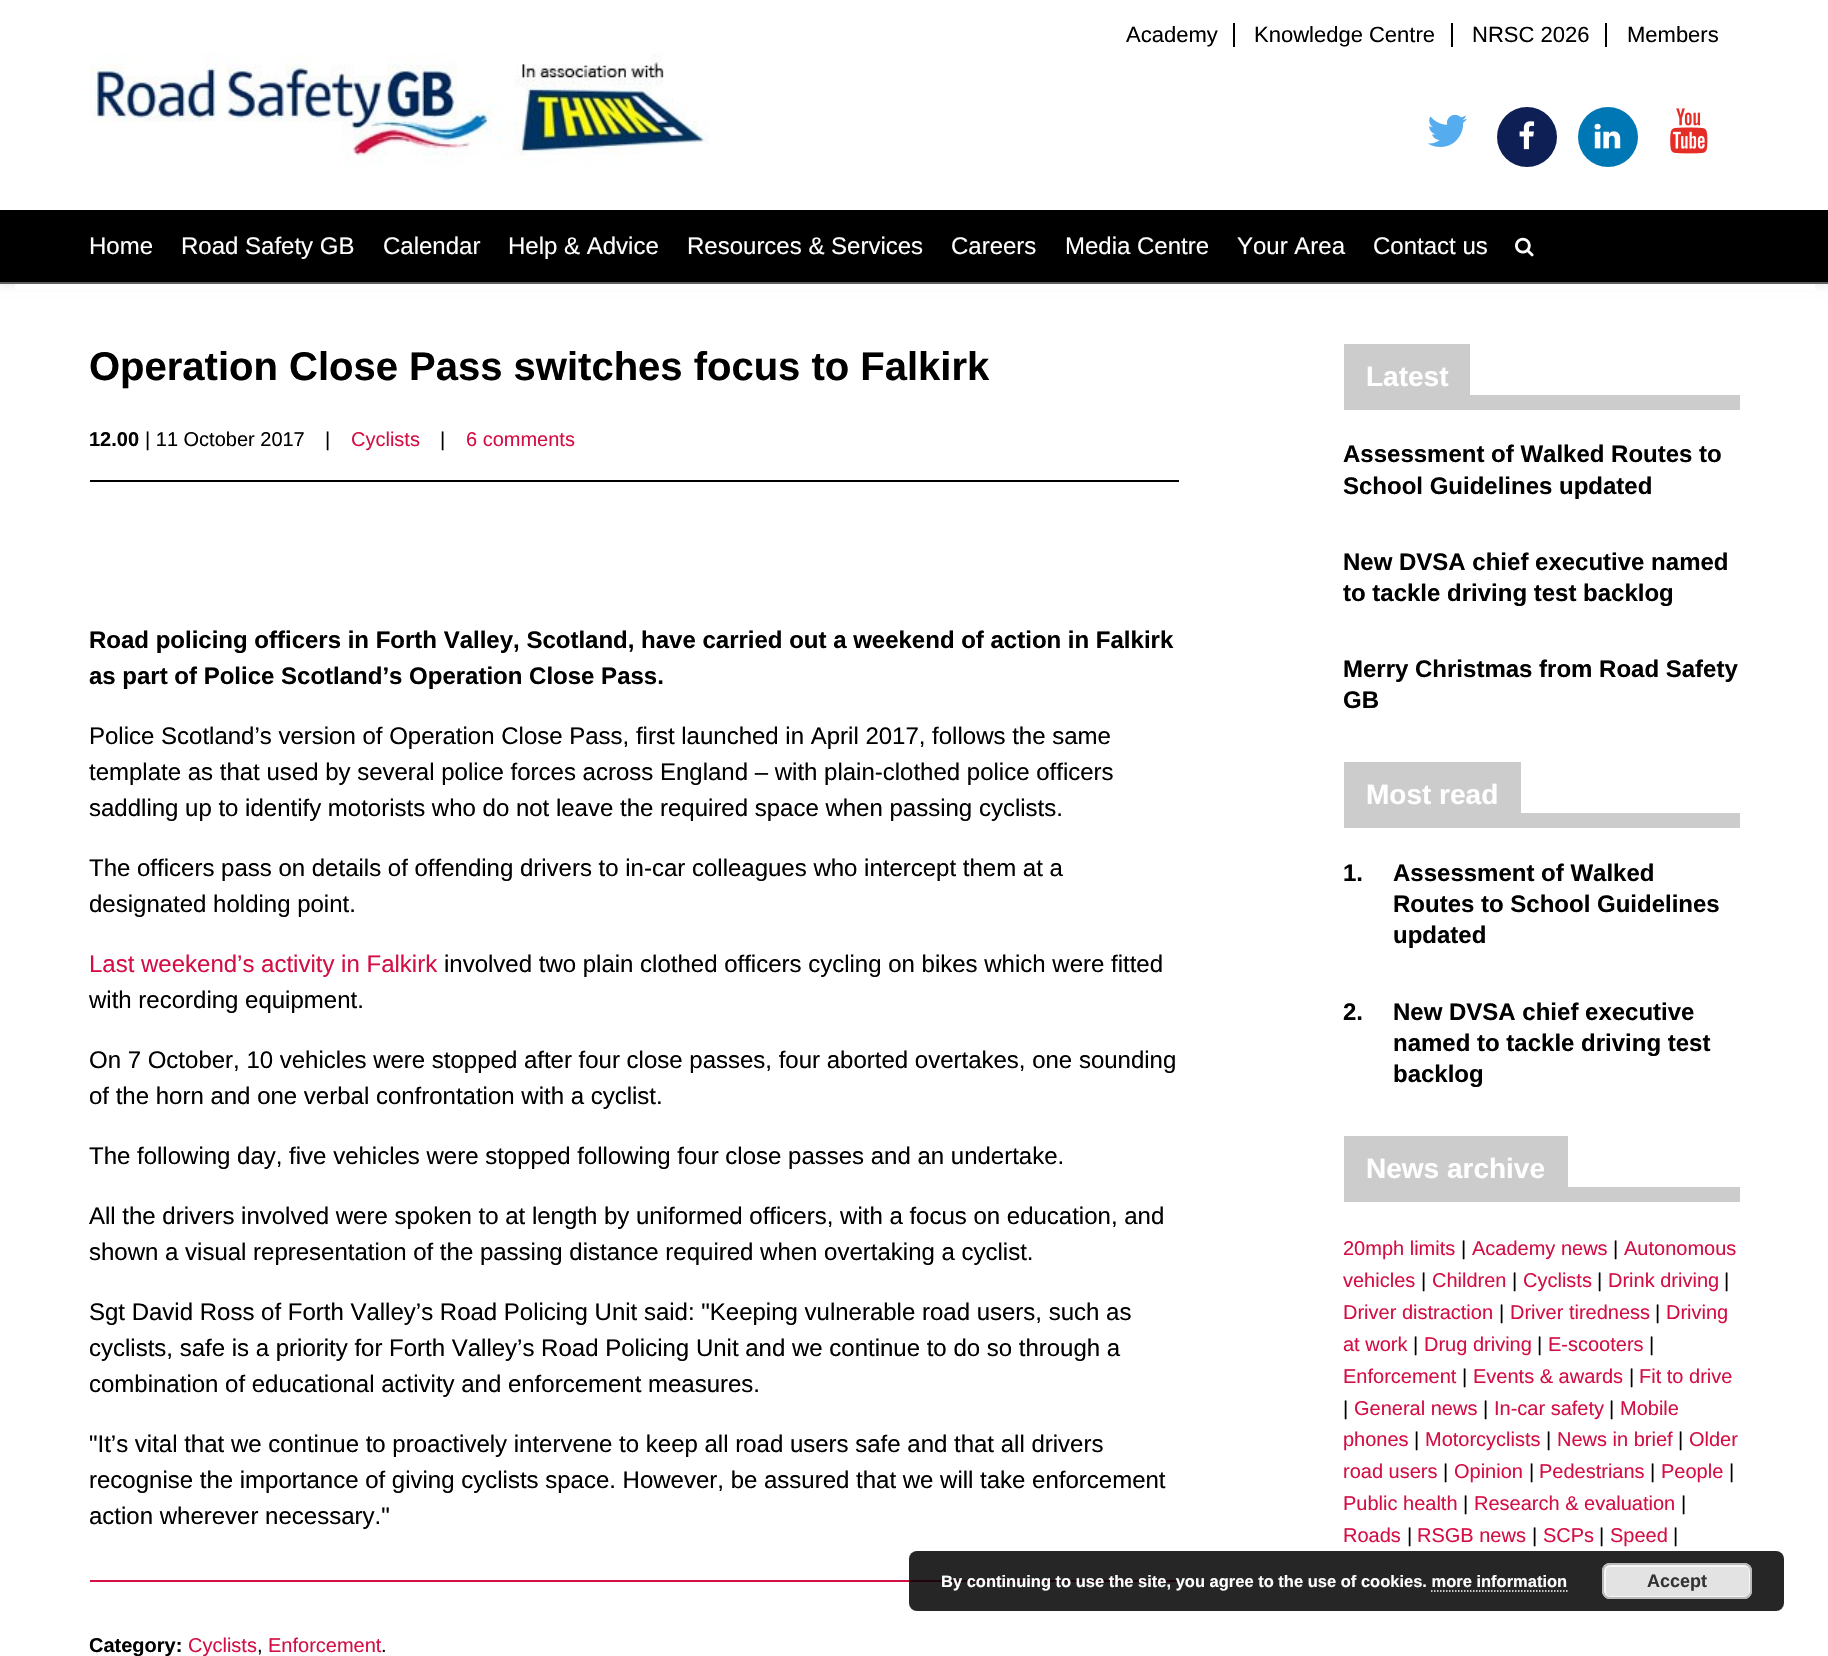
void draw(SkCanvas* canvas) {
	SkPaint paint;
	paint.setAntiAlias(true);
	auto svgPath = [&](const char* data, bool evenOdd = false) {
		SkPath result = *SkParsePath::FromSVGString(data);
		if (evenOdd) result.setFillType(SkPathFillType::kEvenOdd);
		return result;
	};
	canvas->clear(0xffffffff);
	paint.setColor(0x1a000000);
	paint.setMaskFilter(SkMaskFilter::MakeBlur(kNormal_SkBlurStyle, 5));
	canvas->drawRect(SkRect::MakeXYWH(0, 0, 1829, 284), paint);
	paint.setMaskFilter(nullptr);
	paint.setColor(0xffffffff);
	canvas->drawRect(SkRect::MakeXYWH(0, 0, 1828, 210), paint);
	paint.setColor(0xff605f5f);
	canvas->drawRect(SkRect::MakeXYWH(0, 282, 1828, 2), paint);
	paint.setColor(0xff000000);
	canvas->drawRect(SkRect::MakeXYWH(1233, 23, 2, 24), paint);
	SkFont f1(fontMgr->matchFamilyStyle("Liberation Sans", SkFontStyle::Normal()), 22);
	f1.setSubpixel(true);
	canvas->drawString("Academy", 1126, 42, f1, paint);
	canvas->drawRect(SkRect::MakeXYWH(1451, 23, 2, 24), paint);
	canvas->drawString("Knowledge Centre", 1254, 42, f1, paint);
	canvas->drawRect(SkRect::MakeXYWH(1605, 23, 2, 24), paint);
	canvas->drawString("NRSC 2026", 1472, 42, f1, paint);
	canvas->drawString("Members", 1627, 42, f1, paint);
	canvas->drawImageRect(SkImages::DeferredFromEncodedData(SkData::MakeFromFileName("img1.png")), SkRect::MakeXYWH(1427, 114, 40, 33), SkSamplingOptions());
	paint.setColor(0xff0e1f56);
	canvas->drawCircle(1527, 137, 30, paint);
	canvas->drawImageRect(SkImages::DeferredFromEncodedData(SkData::MakeFromFileName("img2.png")), SkRect::MakeXYWH(1519, 121, 16, 29), SkSamplingOptions());
	paint.setColor(0xff0077b5);
	canvas->drawCircle(1608, 137, 30, paint);
	canvas->drawImageRect(SkImages::DeferredFromEncodedData(SkData::MakeFromFileName("img3.png")), SkRect::MakeXYWH(1594, 123, 27, 26), SkSamplingOptions());
	canvas->drawImageRect(SkImages::DeferredFromEncodedData(SkData::MakeFromFileName("img4.png")), SkRect::MakeXYWH(1670, 108, 38, 46), SkSamplingOptions());
	canvas->drawImageRect(SkImages::DeferredFromEncodedData(SkData::MakeFromFileName("img5.png")), SkRect::MakeXYWH(90, 53, 619, 113), SkSamplingOptions());
	paint.setColor(0xff000000);
	canvas->drawRect(SkRect::MakeXYWH(0, 210, 1828, 72), paint);
	SkFont f2(fontMgr->matchFamilyStyle("Liberation Sans", SkFontStyle::Normal()), 24);
	f2.setSubpixel(true);
	paint.setColor(0xffffffff);
	canvas->drawString("Home", 89, 254, f2, paint);
	canvas->drawString("Road Safety GB", 181, 254, f2, paint);
	canvas->drawString("Calendar", 383, 254, f2, paint);
	canvas->drawString("Help & Advice", 508, 254, f2, paint);
	canvas->drawString("Resources & Services", 687, 254, f2, paint);
	canvas->drawString("Careers", 951, 254, f2, paint);
	canvas->drawString("Media Centre", 1065, 254, f2, paint);
	canvas->drawString("Your Area", 1237, 254, f2, paint);
	canvas->drawString("Contact us", 1373, 254, f2, paint);
	canvas->drawImageRect(SkImages::DeferredFromEncodedData(SkData::MakeFromFileName("img6.png")), SkRect::MakeXYWH(1515, 237, 19, 20), SkSamplingOptions());
	canvas->drawRect(SkRect::MakeXYWH(15, 284, 1800, 6), paint);
	paint.setColor(0xff000000);
	canvas->drawRect(SkRect::MakeXYWH(90, 480, 1089, 2), paint);
	SkFont f3(fontMgr->matchFamilyStyle("Liberation Sans", SkFontStyle::Bold()), 40);
	f3.setSubpixel(true);
	canvas->drawString("Operation Close Pass switches focus to Falkirk", 89, 380, f3, paint);
	SkFont f4(fontMgr->matchFamilyStyle("Liberation Sans", SkFontStyle::Bold()), 20);
	f4.setSubpixel(true);
	canvas->drawString("12.00", 89, 446, f4, paint);
	SkFont f5(fontMgr->matchFamilyStyle("Liberation Sans", SkFontStyle::Normal()), 20);
	f5.setSubpixel(true);
	canvas->drawString("| 11 October 2017", 145, 446, f5, paint);
	canvas->drawString("|", 325, 446, f5, paint);
	paint.setColor(0xffd30f45);
	canvas->drawString("Cyclists", 351, 446, f5, paint);
	paint.setColor(0xff000000);
	canvas->drawString("|", 440, 446, f5, paint);
	paint.setColor(0xffd30f45);
	canvas->drawString("6 comments", 466, 446, f5, paint);
	SkFont f6(fontMgr->matchFamilyStyle("Liberation Sans", SkFontStyle::Bold()), 24);
	f6.setSubpixel(true);
	paint.setColor(0xff000000);
	canvas->drawString("Road policing officers in Forth Valley, Scotland, have carried out a weekend of action in Falkirk", 89, 648, f6, paint);
	canvas->drawString("as part of Police Scotland’s Operation Close Pass.", 89, 684, f6, paint);
	canvas->drawString("Police Scotland’s version of Operation Close Pass, first launched in April 2017, follows the same", 89, 744, f2, paint);
	canvas->drawString("template as that used by several police forces across England – with plain-clothed police officers", 89, 780, f2, paint);
	canvas->drawString("saddling up to identify motorists who do not leave the required space when passing cyclists.", 89, 816, f2, paint);
	canvas->drawString("The officers pass on details of offending drivers to in-car colleagues who intercept them at a", 89, 876, f2, paint);
	canvas->drawString("designated holding point.", 89, 912, f2, paint);
	paint.setColor(0xffd30f45);
	canvas->drawString("Last weekend’s activity in Falkirk", 89, 972, f2, paint);
	paint.setColor(0xff000000);
	canvas->drawString("involved two plain clothed officers cycling on bikes which were fitted", 444, 972, f2, paint);
	canvas->drawString("with recording equipment.", 89, 1008, f2, paint);
	canvas->drawString("On 7 October, 10 vehicles were stopped after four close passes, four aborted overtakes, one sounding", 89, 1068, f2, paint);
	canvas->drawString("of the horn and one verbal confrontation with a cyclist.", 89, 1104, f2, paint);
	canvas->drawString("The following day, five vehicles were stopped following four close passes and an undertake.", 89, 1164, f2, paint);
	canvas->drawString("All the drivers involved were spoken to at length by uniformed officers, with a focus on education, and", 89, 1224, f2, paint);
	canvas->drawString("shown a visual representation of the passing distance required when overtaking a cyclist.", 89, 1260, f2, paint);
	canvas->drawString("Sgt David Ross of Forth Valley’s Road Policing Unit said: \"Keeping vulnerable road users, such as", 89, 1320, f2, paint);
	canvas->drawString("cyclists, safe is a priority for Forth Valley’s Road Policing Unit and we continue to do so through a", 89, 1356, f2, paint);
	canvas->drawString("combination of educational activity and enforcement measures.", 89, 1392, f2, paint);
	canvas->drawString("\"It’s vital that we continue to proactively intervene to keep all road users safe and that all drivers", 89, 1452, f2, paint);
	canvas->drawString("recognise the importance of giving cyclists space. However, be assured that we will take enforcement", 89, 1488, f2, paint);
	canvas->drawString("action wherever necessary.\"", 89, 1524, f2, paint);
	paint.setColor(0xffd30f45);
	canvas->drawRect(SkRect::MakeXYWH(90, 1580, 1089, 2), paint);
	paint.setColor(0xff000000);
	canvas->drawString("Category:", 89, 1652, f4, paint);
	paint.setColor(0xffd30f45);
	canvas->drawString("Cyclists", 188, 1652, f5, paint);
	paint.setColor(0xff000000);
	canvas->drawString(",", 257, 1652, f5, paint);
	paint.setColor(0xffd30f45);
	canvas->drawString("Enforcement", 268, 1652, f5, paint);
	paint.setColor(0xff000000);
	canvas->drawString(".", 381, 1652, f5, paint);
	paint.setColor(0xffcccccc);
	canvas->drawRect(SkRect::MakeXYWH(1344, 344, 126, 51), paint);
	SkFont f7(fontMgr->matchFamilyStyle("Liberation Sans", SkFontStyle::Bold()), 28);
	f7.setSubpixel(true);
	paint.setColor(0xffffffff);
	canvas->drawString("Latest", 1366, 386, f7, paint);
	paint.setColor(0xffcccccc);
	canvas->drawRect(SkRect::MakeXYWH(1344, 395, 396, 15), paint);
	paint.setColor(0xff000000);
	canvas->drawString("Assessment of Walked Routes to", 1343, 462, f6, paint);
	canvas->drawString("School Guidelines updated", 1343, 494, f6, paint);
	canvas->drawString("New DVSA chief executive named", 1343, 570, f6, paint);
	canvas->drawString("to tackle driving test backlog", 1343, 601, f6, paint);
	canvas->drawString("Merry Christmas from Road Safety", 1343, 677, f6, paint);
	canvas->drawString("GB", 1343, 708, f6, paint);
	paint.setColor(0xffcccccc);
	canvas->drawRect(SkRect::MakeXYWH(1344, 762, 177, 51), paint);
	paint.setColor(0xffffffff);
	canvas->drawString("Most read", 1366, 804, f7, paint);
	paint.setColor(0xffcccccc);
	canvas->drawRect(SkRect::MakeXYWH(1344, 813, 396, 15), paint);
	paint.setColor(0xff000000);
	canvas->drawString("1.", 1343, 881, f6, paint);
	canvas->drawString("Assessment of Walked", 1393, 881, f6, paint);
	canvas->drawString("Routes to School Guidelines", 1393, 912, f6, paint);
	canvas->drawString("updated", 1393, 943, f6, paint);
	canvas->drawString("2.", 1343, 1020, f6, paint);
	canvas->drawString("New DVSA chief executive", 1393, 1020, f6, paint);
	canvas->drawString("named to tackle driving test", 1393, 1051, f6, paint);
	canvas->drawString("backlog", 1393, 1082, f6, paint);
	paint.setColor(0xffcccccc);
	canvas->drawRect(SkRect::MakeXYWH(1344, 1136, 224, 51), paint);
	paint.setColor(0xffffffff);
	canvas->drawString("News archive", 1366, 1178, f7, paint);
	paint.setColor(0xffcccccc);
	canvas->drawRect(SkRect::MakeXYWH(1344, 1187, 396, 15), paint);
	paint.setColor(0xffd30f45);
	canvas->drawString("20mph limits", 1343, 1255, f5, paint);
	paint.setColor(0xff000000);
	canvas->drawString("|", 1461, 1255, f5, paint);
	paint.setColor(0xffd30f45);
	canvas->drawString("Academy news", 1472, 1255, f5, paint);
	paint.setColor(0xff000000);
	canvas->drawString("|", 1613, 1255, f5, paint);
	paint.setColor(0xffd30f45);
	canvas->drawString("Autonomous", 1624, 1255, f5, paint);
	canvas->drawString("vehicles", 1343, 1287, f5, paint);
	paint.setColor(0xff000000);
	canvas->drawString("|", 1421, 1287, f5, paint);
	paint.setColor(0xffd30f45);
	canvas->drawString("Children", 1432, 1287, f5, paint);
	paint.setColor(0xff000000);
	canvas->drawString("|", 1512, 1287, f5, paint);
	paint.setColor(0xffd30f45);
	canvas->drawString("Cyclists", 1523, 1287, f5, paint);
	paint.setColor(0xff000000);
	canvas->drawString("|", 1597, 1287, f5, paint);
	paint.setColor(0xffd30f45);
	canvas->drawString("Drink driving", 1608, 1287, f5, paint);
	paint.setColor(0xff000000);
	canvas->drawString("|", 1724, 1287, f5, paint);
	paint.setColor(0xffd30f45);
	canvas->drawString("Driver distraction", 1343, 1319, f5, paint);
	paint.setColor(0xff000000);
	canvas->drawString("|", 1499, 1319, f5, paint);
	paint.setColor(0xffd30f45);
	canvas->drawString("Driver tiredness", 1510, 1319, f5, paint);
	paint.setColor(0xff000000);
	canvas->drawString("|", 1655, 1319, f5, paint);
	paint.setColor(0xffd30f45);
	canvas->drawString("Driving", 1666, 1319, f5, paint);
	canvas->drawString("at work", 1343, 1351, f5, paint);
	paint.setColor(0xff000000);
	canvas->drawString("|", 1413, 1351, f5, paint);
	paint.setColor(0xffd30f45);
	canvas->drawString("Drug driving", 1424, 1351, f5, paint);
	paint.setColor(0xff000000);
	canvas->drawString("|", 1537, 1351, f5, paint);
	paint.setColor(0xffd30f45);
	canvas->drawString("E-scooters", 1548, 1351, f5, paint);
	paint.setColor(0xff000000);
	canvas->drawString("|", 1649, 1351, f5, paint);
	paint.setColor(0xffd30f45);
	canvas->drawString("Enforcement", 1343, 1383, f5, paint);
	paint.setColor(0xff000000);
	canvas->drawString("|", 1462, 1383, f5, paint);
	paint.setColor(0xffd30f45);
	canvas->drawString("Events & awards", 1473, 1383, f5, paint);
	paint.setColor(0xff000000);
	canvas->drawString("|", 1629, 1383, f5, paint);
	paint.setColor(0xffd30f45);
	canvas->drawString("Fit to drive", 1639, 1383, f5, paint);
	paint.setColor(0xff000000);
	canvas->drawString("|", 1343, 1415, f5, paint);
	paint.setColor(0xffd30f45);
	canvas->drawString("General news", 1354, 1415, f5, paint);
	paint.setColor(0xff000000);
	canvas->drawString("|", 1483, 1415, f5, paint);
	paint.setColor(0xffd30f45);
	canvas->drawString("In-car safety", 1494, 1415, f5, paint);
	paint.setColor(0xff000000);
	canvas->drawString("|", 1609, 1415, f5, paint);
	paint.setColor(0xffd30f45);
	canvas->drawString("Mobile", 1620, 1415, f5, paint);
	canvas->drawString("phones", 1343, 1446, f5, paint);
	paint.setColor(0xff000000);
	canvas->drawString("|", 1414, 1446, f5, paint);
	paint.setColor(0xffd30f45);
	canvas->drawString("Motorcyclists", 1425, 1446, f5, paint);
	paint.setColor(0xff000000);
	canvas->drawString("|", 1546, 1446, f5, paint);
	paint.setColor(0xffd30f45);
	canvas->drawString("News in brief", 1557, 1446, f5, paint);
	paint.setColor(0xff000000);
	canvas->drawString("|", 1678, 1446, f5, paint);
	paint.setColor(0xffd30f45);
	canvas->drawString("Older", 1689, 1446, f5, paint);
	canvas->drawString("road users", 1343, 1478, f5, paint);
	paint.setColor(0xff000000);
	canvas->drawString("|", 1443, 1478, f5, paint);
	paint.setColor(0xffd30f45);
	canvas->drawString("Opinion", 1454, 1478, f5, paint);
	paint.setColor(0xff000000);
	canvas->drawString("|", 1529, 1478, f5, paint);
	paint.setColor(0xffd30f45);
	canvas->drawString("Pedestrians", 1539, 1478, f5, paint);
	paint.setColor(0xff000000);
	canvas->drawString("|", 1650, 1478, f5, paint);
	paint.setColor(0xffd30f45);
	canvas->drawString("People", 1661, 1478, f5, paint);
	paint.setColor(0xff000000);
	canvas->drawString("|", 1729, 1478, f5, paint);
	paint.setColor(0xffd30f45);
	canvas->drawString("Public health", 1343, 1510, f5, paint);
	paint.setColor(0xff000000);
	canvas->drawString("|", 1463, 1510, f5, paint);
	paint.setColor(0xffd30f45);
	canvas->drawString("Research & evaluation", 1474, 1510, f5, paint);
	paint.setColor(0xff000000);
	canvas->drawString("|", 1681, 1510, f5, paint);
	paint.setColor(0xffd30f45);
	canvas->drawString("Roads", 1343, 1542, f5, paint);
	paint.setColor(0xff000000);
	canvas->drawString("|", 1407, 1542, f5, paint);
	paint.setColor(0xffd30f45);
	canvas->drawString("RSGB news", 1417, 1542, f5, paint);
	paint.setColor(0xff000000);
	canvas->drawString("|", 1532, 1542, f5, paint);
	paint.setColor(0xffd30f45);
	canvas->drawString("SCPs", 1543, 1542, f5, paint);
	paint.setColor(0xff000000);
	canvas->drawString("|", 1599, 1542, f5, paint);
	paint.setColor(0xffd30f45);
	canvas->drawString("Speed", 1610, 1542, f5, paint);
	paint.setColor(0xff000000);
	canvas->drawString("|", 1673, 1542, f5, paint);
	paint.setColor(0xd9000000);
	canvas->drawRoundRect(SkRect::MakeXYWH(909, 1551, 875, 60), 8, 8, paint);
	SkFont f8(fontMgr->matchFamilyStyle("Liberation Sans", SkFontStyle::Bold()), 16.5);
	f8.setSubpixel(true);
	paint.setColor(0xffffffff);
	canvas->drawString("By continuing to use the site, you agree to the use of cookies. more information", 941, 1587, f8, paint);
	paint.setColor(0xffe3e3e3);
	canvas->drawRoundRect(SkRect::MakeXYWH(1602, 1563, 150, 36), 8, 8, paint);
	paint.setStroke(true);
	paint.setStrokeWidth(2);
	paint.setColor(0xfff6f6f6);
	canvas->drawRoundRect(SkRect::MakeXYWH(1605, 1566, 145, 31), 5, 5, paint);
	paint.setColor(0xffbbbbbb);
	canvas->drawRoundRect(SkRect::MakeXYWH(1603, 1564, 148, 34), 7, 7, paint);
	SkFont f9(fontMgr->matchFamilyStyle("Liberation Sans", SkFontStyle::Bold()), 18);
	f9.setSubpixel(true);
	paint.setStroke(false);
	paint.setColor(0xff333333);
	canvas->drawString("Accept", 1647, 1587, f9, paint);
	paint.setStroke(true);
	paint.setStrokeWidth(1.5);
	paint.setColor(0xffffffff);
	paint.setPathEffect(SkDashPathEffect::Make({{1.5f, 1.5f}}, 0));
	canvas->drawPath(svgPath("M1431 1591H1567.5"), paint);
	paint.setPathEffect(nullptr);
}
